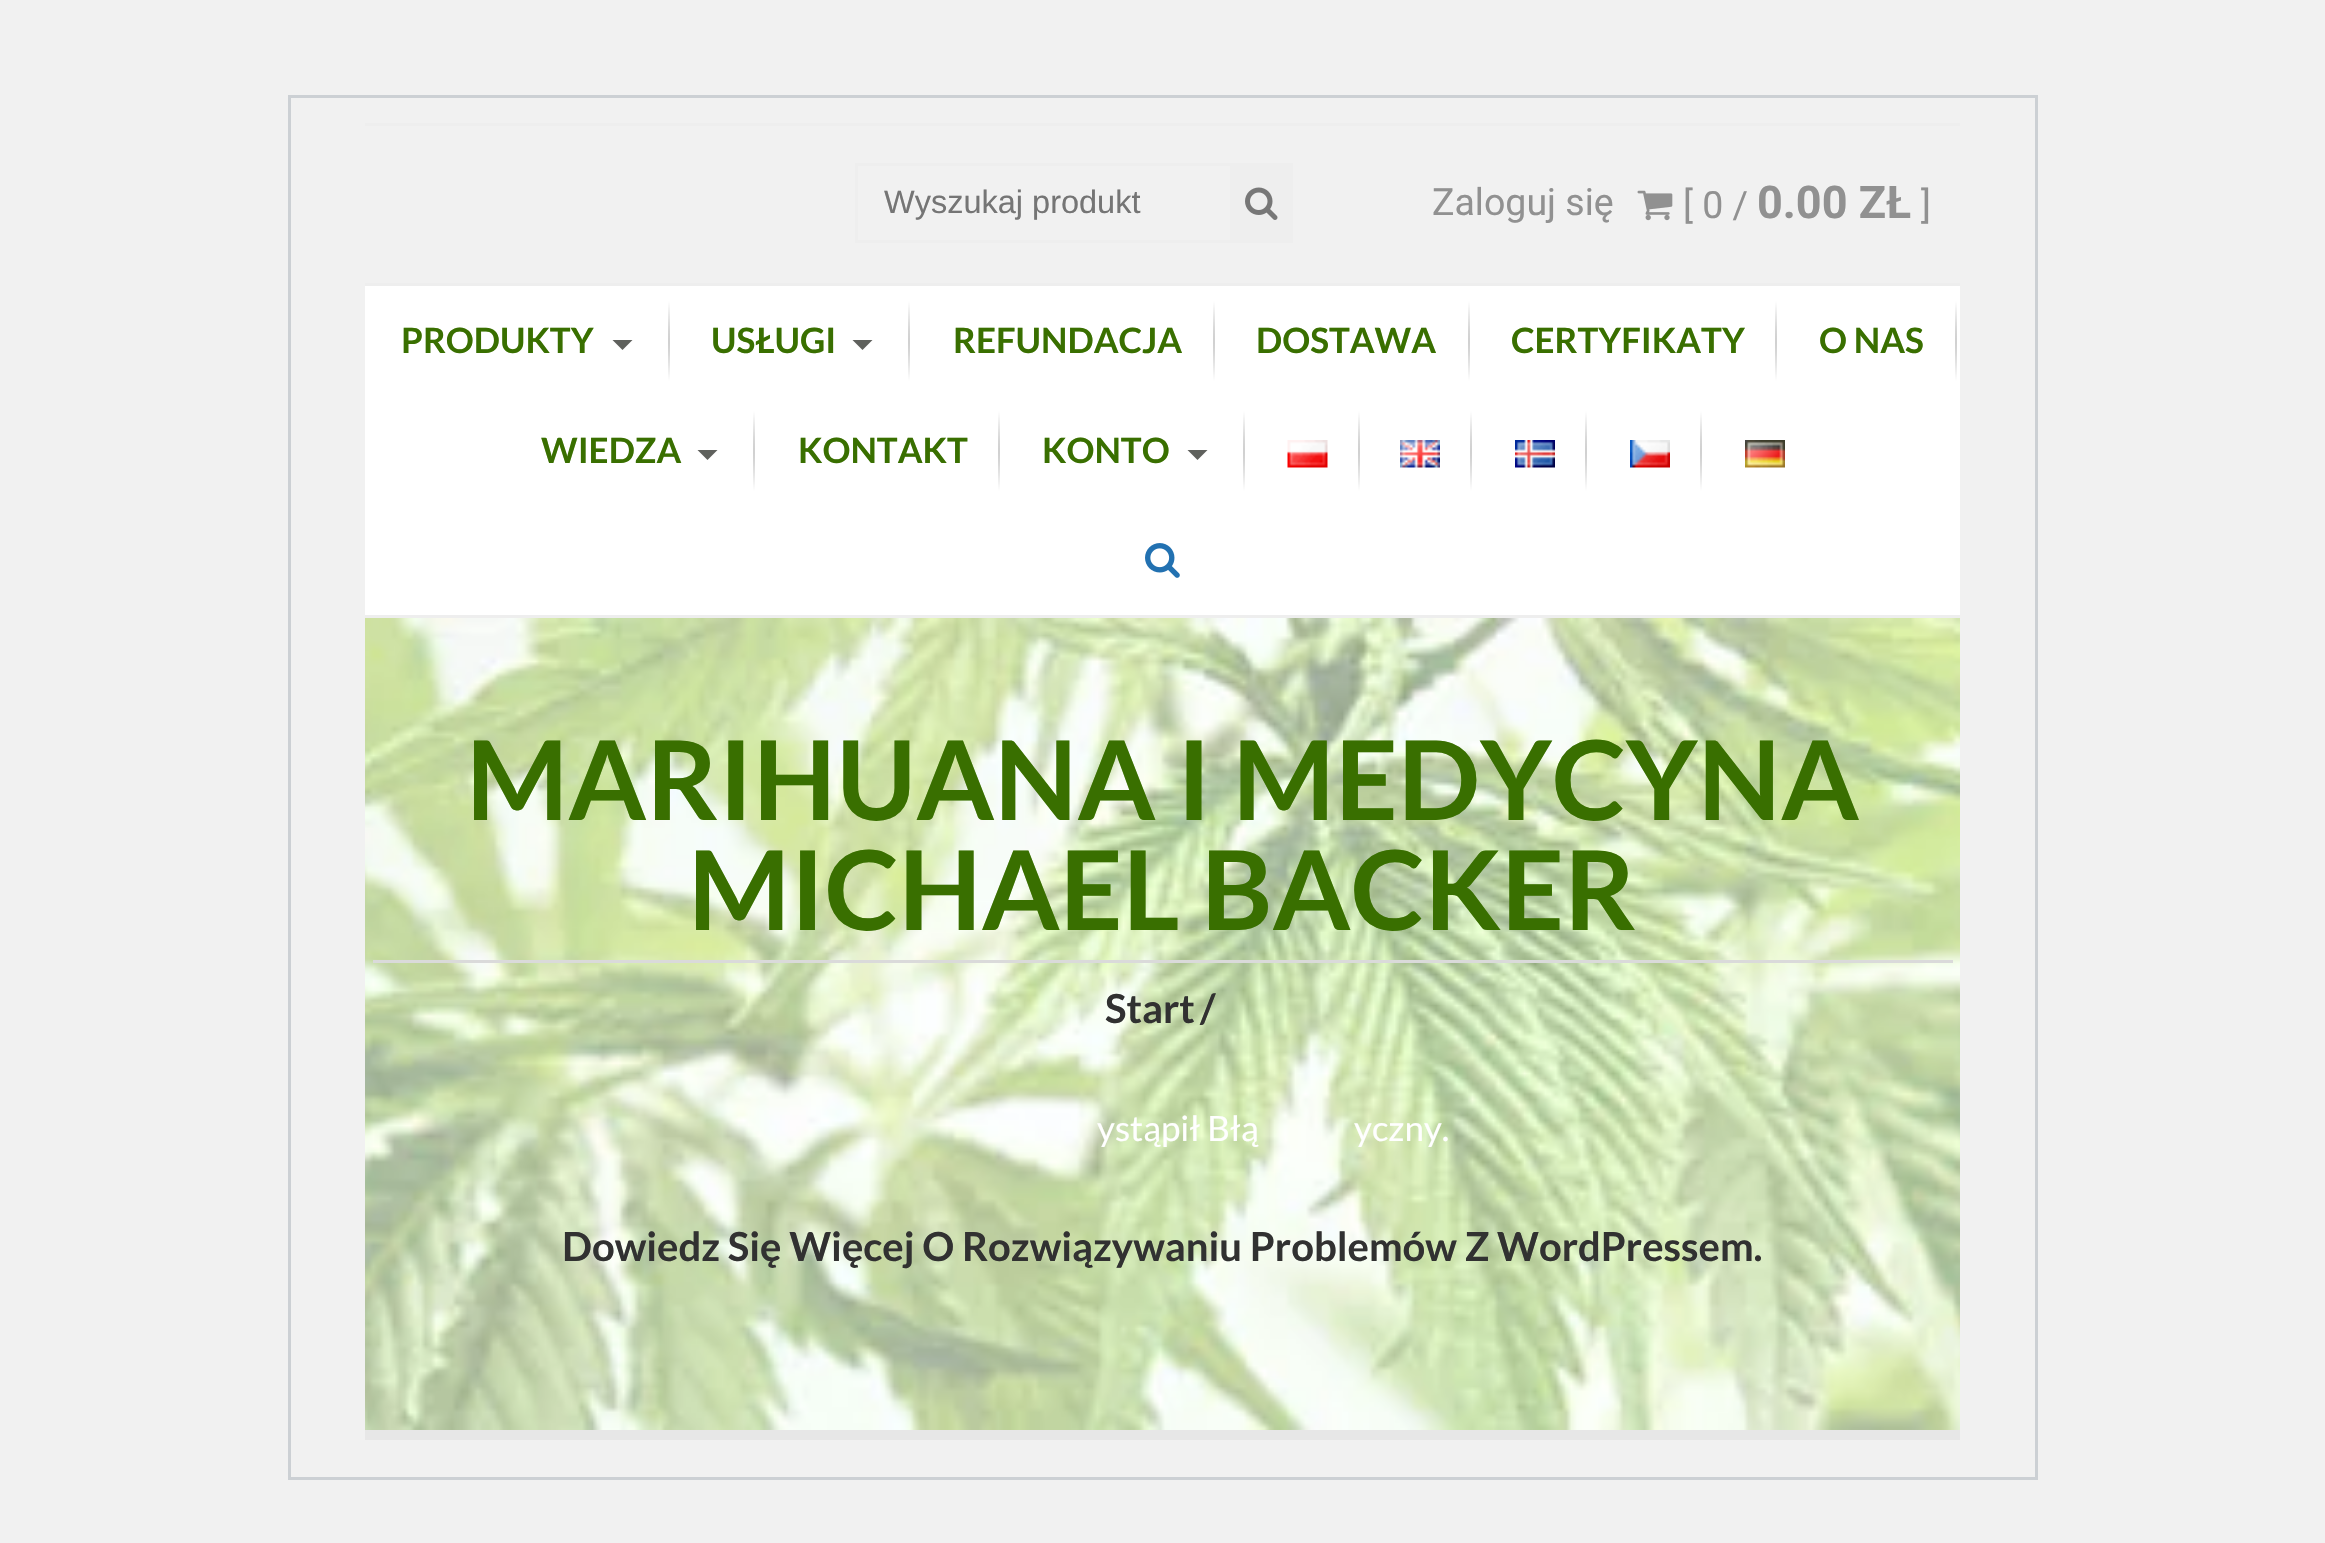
void draw(SkCanvas* canvas) {
	SkPaint paint;
	paint.setAntiAlias(true);
	auto svgPath = [&](const char* data, bool evenOdd = false) {
		SkPath result = *SkParsePath::FromSVGString(data);
		if (evenOdd) result.setFillType(SkPathFillType::kEvenOdd);
		return result;
	};
	canvas->clear(0xfff1f1f1);
	paint.setStroke(true);
	paint.setStrokeWidth(3);
	paint.setColor(0xffccd0d4);
	canvas->drawRect(SkRect::MakeXYWH(289.5, 96.5, 1747, 1382), paint);
	paint.setStroke(false);
	paint.setColor(0xffeeeeee);
	canvas->drawRect(SkRect::MakeXYWH(365, 123, 1595, 3), paint);
	paint.setStroke(true);
	canvas->drawRect(SkRect::MakeXYWH(856.5, 164.5, 435, 77), paint);
	SkFont f1(fontMgr->matchFamilyStyle("Liberation Sans", SkFontStyle::Normal()), 32.5);
	f1.setSubpixel(true);
	paint.setStroke(false);
	paint.setColor(0xff757575);
	canvas->drawString("Wyszukaj produkt", 884, 213, f1, paint);
	paint.setColor(0xffeeeeee);
	canvas->drawRect(SkRect::MakeXYWH(1230, 166, 60, 74), paint);
	canvas->drawImageRect(SkImages::DeferredFromEncodedData(SkData::MakeFromFileName("img1.png")), SkRect::MakeXYWH(1245, 187, 33, 33), SkSamplingOptions());
	SkFont f2(fontMgr->matchFamilyStyle("Roboto", SkFontStyle::Normal()), 37.5);
	f2.setSubpixel(true);
	paint.setColor(0xff919191);
	canvas->drawString("Zaloguj się", 1432, 215, f2, paint);
	canvas->drawImageRect(SkImages::DeferredFromEncodedData(SkData::MakeFromFileName("img2.png")), SkRect::MakeXYWH(1637, 190, 36, 31), SkSamplingOptions());
	canvas->drawString("[ 0 /", 1683, 218, f2, paint);
	SkFont f3(fontMgr->matchFamilyStyle("Roboto", SkFontStyle::Bold()), 45);
	f3.setSubpixel(true);
	canvas->drawString("0.00 ZŁ", 1757, 218, f3, paint);
	canvas->drawString("]", 1921, 218, f2, paint);
	paint.setColor(0xffffffff);
	canvas->drawRect(SkRect::MakeXYWH(365, 286, 1595, 329), paint);
	paint.setColor(0xffeeeeee);
	canvas->drawRect(SkRect::MakeXYWH(365, 283, 1595, 3), paint);
	canvas->drawRect(SkRect::MakeXYWH(365, 615, 1595, 3), paint);
	SkFont f4(fontMgr->matchFamilyStyle("Lato", SkFontStyle::Bold()), 35);
	f4.setSubpixel(true);
	paint.setColor(0xff396f00);
	canvas->drawString("PRODUKTY", 401, 353, f4, paint);
	paint.setColor(0xff5f615d);
	canvas->drawPath(svgPath("M612.5 340H632.5L622.5 350Z"), paint);
	{
		const SkColor colors[] = {0xffb3b3b3, 0xffffffff};
		const float stops[] = {0, 0.7};
		SkMatrix m = SkMatrix::Translate(669, 341).preScale(1.8, 62);
		paint.setShader(SkGradientShader::MakeRadial({0, 0}, 1, colors, stops, 2, SkTileMode::kClamp, 0, &m));
		paint.setAlpha(255);
	}
	canvas->drawRect(SkRect::MakeXYWH(668, 298, 2, 87), paint);
	paint.setShader(nullptr);
	paint.setColor(0xff396f00);
	canvas->drawString("USŁUGI", 711, 353, f4, paint);
	paint.setColor(0xff5f615d);
	canvas->drawPath(svgPath("M852.5 340H872.5L862.5 350Z"), paint);
	{
		const SkColor colors[] = {0xffb3b3b3, 0xffffffff};
		const float stops[] = {0, 0.7};
		SkMatrix m = SkMatrix::Translate(909, 341).preScale(1.8, 62);
		paint.setShader(SkGradientShader::MakeRadial({0, 0}, 1, colors, stops, 2, SkTileMode::kClamp, 0, &m));
		paint.setAlpha(255);
	}
	canvas->drawRect(SkRect::MakeXYWH(908, 298, 2, 87), paint);
	paint.setShader(nullptr);
	paint.setColor(0xff396f00);
	canvas->drawString("REFUNDACJA", 953, 353, f4, paint);
	{
		const SkColor colors[] = {0xffb3b3b3, 0xffffffff};
		const float stops[] = {0, 0.7};
		SkMatrix m = SkMatrix::Translate(1214, 341).preScale(1.8, 62);
		paint.setShader(SkGradientShader::MakeRadial({0, 0}, 1, colors, stops, 2, SkTileMode::kClamp, 0, &m));
		paint.setAlpha(255);
	}
	canvas->drawRect(SkRect::MakeXYWH(1213, 298, 2, 87), paint);
	paint.setShader(nullptr);
	paint.setColor(0xff396f00);
	canvas->drawString("DOSTAWA", 1256, 353, f4, paint);
	{
		const SkColor colors[] = {0xffb3b3b3, 0xffffffff};
		const float stops[] = {0, 0.7};
		SkMatrix m = SkMatrix::Translate(1469, 341).preScale(1.8, 62);
		paint.setShader(SkGradientShader::MakeRadial({0, 0}, 1, colors, stops, 2, SkTileMode::kClamp, 0, &m));
		paint.setAlpha(255);
	}
	canvas->drawRect(SkRect::MakeXYWH(1468, 298, 2, 87), paint);
	paint.setShader(nullptr);
	paint.setColor(0xff396f00);
	canvas->drawString("CERTYFIKATY", 1511, 353, f4, paint);
	{
		const SkColor colors[] = {0xffb3b3b3, 0xffffffff};
		const float stops[] = {0, 0.7};
		SkMatrix m = SkMatrix::Translate(1776, 341).preScale(1.8, 62);
		paint.setShader(SkGradientShader::MakeRadial({0, 0}, 1, colors, stops, 2, SkTileMode::kClamp, 0, &m));
		paint.setAlpha(255);
	}
	canvas->drawRect(SkRect::MakeXYWH(1775, 298, 2, 87), paint);
	paint.setShader(nullptr);
	paint.setColor(0xff396f00);
	canvas->drawString("O NAS", 1819, 353, f4, paint);
	{
		const SkColor colors[] = {0xffb3b3b3, 0xffffffff};
		const float stops[] = {0, 0.7};
		SkMatrix m = SkMatrix::Translate(1956, 341).preScale(1.8, 62);
		paint.setShader(SkGradientShader::MakeRadial({0, 0}, 1, colors, stops, 2, SkTileMode::kClamp, 0, &m));
		paint.setAlpha(255);
	}
	canvas->drawRect(SkRect::MakeXYWH(1955, 298, 2, 87), paint);
	paint.setShader(nullptr);
	paint.setColor(0xff396f00);
	canvas->drawString("WIEDZA", 541, 463, f4, paint);
	paint.setColor(0xff5f615d);
	canvas->drawPath(svgPath("M697.5 450H717.5L707.5 460Z"), paint);
	{
		const SkColor colors[] = {0xffb3b3b3, 0xffffffff};
		const float stops[] = {0, 0.7};
		SkMatrix m = SkMatrix::Translate(754, 451).preScale(1.8, 62);
		paint.setShader(SkGradientShader::MakeRadial({0, 0}, 1, colors, stops, 2, SkTileMode::kClamp, 0, &m));
		paint.setAlpha(255);
	}
	canvas->drawRect(SkRect::MakeXYWH(753, 408, 2, 87), paint);
	paint.setShader(nullptr);
	paint.setColor(0xff396f00);
	canvas->drawString("KONTAKT", 798, 463, f4, paint);
	{
		const SkColor colors[] = {0xffb3b3b3, 0xffffffff};
		const float stops[] = {0, 0.7};
		SkMatrix m = SkMatrix::Translate(999, 451).preScale(1.8, 62);
		paint.setShader(SkGradientShader::MakeRadial({0, 0}, 1, colors, stops, 2, SkTileMode::kClamp, 0, &m));
		paint.setAlpha(255);
	}
	canvas->drawRect(SkRect::MakeXYWH(998, 408, 2, 87), paint);
	paint.setShader(nullptr);
	paint.setColor(0xff396f00);
	canvas->drawString("KONTO", 1042, 463, f4, paint);
	paint.setColor(0xff5f615d);
	canvas->drawPath(svgPath("M1187.5 450H1207.5L1197.5 460Z"), paint);
	{
		const SkColor colors[] = {0xffb3b3b3, 0xffffffff};
		const float stops[] = {0, 0.7};
		SkMatrix m = SkMatrix::Translate(1244, 451).preScale(1.8, 62);
		paint.setShader(SkGradientShader::MakeRadial({0, 0}, 1, colors, stops, 2, SkTileMode::kClamp, 0, &m));
		paint.setAlpha(255);
	}
	canvas->drawRect(SkRect::MakeXYWH(1243, 408, 2, 87), paint);
	canvas->drawImageRect(SkImages::DeferredFromEncodedData(SkData::MakeFromFileName("img3.png")), SkRect::MakeXYWH(1287, 440, 41, 28), SkSamplingOptions());
	{
		const SkColor colors[] = {0xffb3b3b3, 0xffffffff};
		const float stops[] = {0, 0.7};
		SkMatrix m = SkMatrix::Translate(1359, 451).preScale(1.8, 62);
		paint.setShader(SkGradientShader::MakeRadial({0, 0}, 1, colors, stops, 2, SkTileMode::kClamp, 0, &m));
		paint.setAlpha(255);
	}
	canvas->drawRect(SkRect::MakeXYWH(1358, 408, 2, 87), paint);
	canvas->drawImageRect(SkImages::DeferredFromEncodedData(SkData::MakeFromFileName("img4.png")), SkRect::MakeXYWH(1400, 440, 40, 28), SkSamplingOptions());
	{
		const SkColor colors[] = {0xffb3b3b3, 0xffffffff};
		const float stops[] = {0, 0.7};
		SkMatrix m = SkMatrix::Translate(1471, 451).preScale(1.8, 62);
		paint.setShader(SkGradientShader::MakeRadial({0, 0}, 1, colors, stops, 2, SkTileMode::kClamp, 0, &m));
		paint.setAlpha(255);
	}
	canvas->drawRect(SkRect::MakeXYWH(1470, 408, 2, 87), paint);
	canvas->drawImageRect(SkImages::DeferredFromEncodedData(SkData::MakeFromFileName("img5.png")), SkRect::MakeXYWH(1515, 440, 40, 28), SkSamplingOptions());
	{
		const SkColor colors[] = {0xffb3b3b3, 0xffffffff};
		const float stops[] = {0, 0.7};
		SkMatrix m = SkMatrix::Translate(1586, 451).preScale(1.8, 62);
		paint.setShader(SkGradientShader::MakeRadial({0, 0}, 1, colors, stops, 2, SkTileMode::kClamp, 0, &m));
		paint.setAlpha(255);
	}
	canvas->drawRect(SkRect::MakeXYWH(1585, 408, 2, 87), paint);
	canvas->drawImageRect(SkImages::DeferredFromEncodedData(SkData::MakeFromFileName("img6.png")), SkRect::MakeXYWH(1630, 440, 40, 28), SkSamplingOptions());
	{
		const SkColor colors[] = {0xffb3b3b3, 0xffffffff};
		const float stops[] = {0, 0.7};
		SkMatrix m = SkMatrix::Translate(1701, 451).preScale(1.8, 62);
		paint.setShader(SkGradientShader::MakeRadial({0, 0}, 1, colors, stops, 2, SkTileMode::kClamp, 0, &m));
		paint.setAlpha(255);
	}
	canvas->drawRect(SkRect::MakeXYWH(1700, 408, 2, 87), paint);
	canvas->drawImageRect(SkImages::DeferredFromEncodedData(SkData::MakeFromFileName("img7.png")), SkRect::MakeXYWH(1745, 440, 40, 28), SkSamplingOptions());
	canvas->drawImageRect(SkImages::DeferredFromEncodedData(SkData::MakeFromFileName("img8.png")), SkRect::MakeXYWH(1145, 543, 35, 35), SkSamplingOptions());
	paint.setShader(nullptr);
	paint.setColor(0xffe7e7e7);
	canvas->drawRect(SkRect::MakeXYWH(365, 1430, 1595, 10), paint);
	canvas->drawImageRect(SkImages::DeferredFromEncodedData(SkData::MakeFromFileName("img9.png")), SkRect::MakeXYWH(365, 618, 1595, 812), SkSamplingOptions());
	paint.setColor(0xffdadada);
	canvas->drawRect(SkRect::MakeXYWH(373, 960, 1580, 3), paint);
	SkFont f5(fontMgr->matchFamilyStyle("Lato", SkFontStyle::Bold()), 110);
	f5.setSubpixel(true);
	paint.setColor(0xff396f00);
	canvas->drawString("MARIHUANA I MEDYCYNA", 466, 820, f5, paint);
	canvas->drawString("MICHAEL BACKER", 688, 930, f5, paint);
	SkFont f6(fontMgr->matchFamilyStyle("Lato", SkFontStyle::Bold()), 40);
	f6.setSubpixel(true);
	paint.setColor(0xff313131);
	canvas->drawString("Start", 1105, 1023, f6, paint);
	canvas->drawString("/", 1200, 1023, f6, paint);
	SkFont f7(fontMgr->matchFamilyStyle("Lato", SkFontStyle::Normal()), 35);
	f7.setSubpixel(true);
	paint.setColor(0xffffffff);
	canvas->drawString("ystąpił Błą", 1097, 1141, f7, paint);
	canvas->drawString("yczny.", 1354, 1141, f7, paint);
	paint.setColor(0xff313131);
	canvas->drawString("Dowiedz Się Więcej O Rozwiązywaniu Problemów Z WordPressem.", 562, 1261, f6, paint);
}
